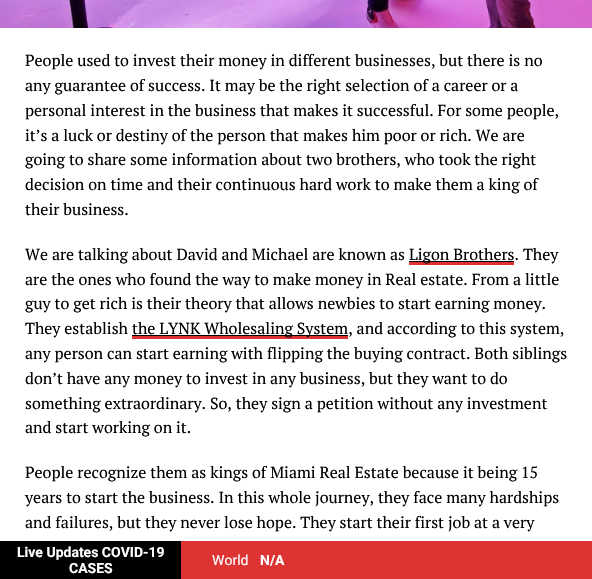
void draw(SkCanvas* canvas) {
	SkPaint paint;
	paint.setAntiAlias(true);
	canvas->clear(0xffffffff);
	canvas->drawImageRect(SkImages::DeferredFromEncodedData(SkData::MakeFromFileName("img1.png")), SkRect::MakeXYWH(0, 0, 592, 28), SkSamplingOptions());
	SkFont f1(fontMgr->matchFamilyStyle("PT Serif", SkFontStyle::Normal()), 16);
	f1.setSubpixel(true);
	paint.setColor(0xff000000);
	canvas->drawString("People used to invest their money in different businesses, but there is no", 25, 66, f1, paint);
	canvas->drawString("any guarantee of success. It may be the right selection of a career or a", 25, 91, f1, paint);
	canvas->drawString("personal interest in the business that makes it successful. For some people,", 25, 116, f1, paint);
	canvas->drawString("it’s a luck or destiny of the person that makes him poor or rich. We are", 25, 141, f1, paint);
	canvas->drawString("going to share some information about two brothers, who took the right", 25, 165, f1, paint);
	canvas->drawString("decision on time and their continuous hard work to make them a king of", 25, 190, f1, paint);
	canvas->drawString("their business.", 25, 215, f1, paint);
	canvas->drawString("We are talking about David and Michael are known as", 25, 260, f1, paint);
	paint.setColor(0xffdd3333);
	canvas->drawRect(SkRect::MakeXYWH(409, 262, 105, 3), paint);
	paint.setColor(0xff000000);
	canvas->drawRect(SkRect::MakeXYWH(409, 261, 105, 1), paint);
	canvas->drawString("Ligon Brothers. They", 409, 260, f1, paint);
	canvas->drawString("are the ones who found the way to make money in Real estate. From a little", 25, 285, f1, paint);
	canvas->drawString("guy to get rich is their theory that allows newbies to start earning money.", 25, 309, f1, paint);
	canvas->drawString("They establish", 25, 334, f1, paint);
	paint.setColor(0xffdd3333);
	canvas->drawRect(SkRect::MakeXYWH(132, 336, 216, 3), paint);
	paint.setColor(0xff000000);
	canvas->drawRect(SkRect::MakeXYWH(132, 335, 216, 1), paint);
	canvas->drawString("the LYNK Wholesaling System, and according to this system,", 132, 334, f1, paint);
	canvas->drawString("any person can start earning with flipping the buying contract. Both siblings", 25, 359, f1, paint);
	canvas->drawString("don’t have any money to invest in any business, but they want to do", 25, 384, f1, paint);
	canvas->drawString("something extraordinary. So, they sign a petition without any investment", 25, 409, f1, paint);
	canvas->drawString("and start working on it.", 25, 433, f1, paint);
	canvas->drawString("People recognize them as kings of Miami Real Estate because it being 15", 25, 478, f1, paint);
	canvas->drawString("years to start the business. In this whole journey, they face many hardships", 25, 503, f1, paint);
	canvas->drawString("and failures, but they never lose hope. They start their first job at a very", 25, 528, f1, paint);
	paint.setColor(0xffdd3333);
	canvas->drawRect(SkRect::MakeXYWH(181, 541, 411, 38), paint);
	paint.setColor(0xff000000);
	canvas->drawRect(SkRect::MakeXYWH(0, 541, 181, 38), paint);
	SkFont f2(fontMgr->matchFamilyStyle("Roboto", SkFontStyle::Bold()), 14);
	f2.setSubpixel(true);
	paint.setColor(0xffffffff);
	canvas->drawString("Live Updates COVID-19", 17, 557, f2, paint);
	canvas->drawString("CASES", 69, 573, f2, paint);
	SkFont f3(fontMgr->matchFamilyStyle("Roboto", SkFontStyle::Normal()), 14);
	f3.setSubpixel(true);
	canvas->drawString("World", 212, 565, f3, paint);
	canvas->drawString("N/A", 260, 565, f2, paint);
}
